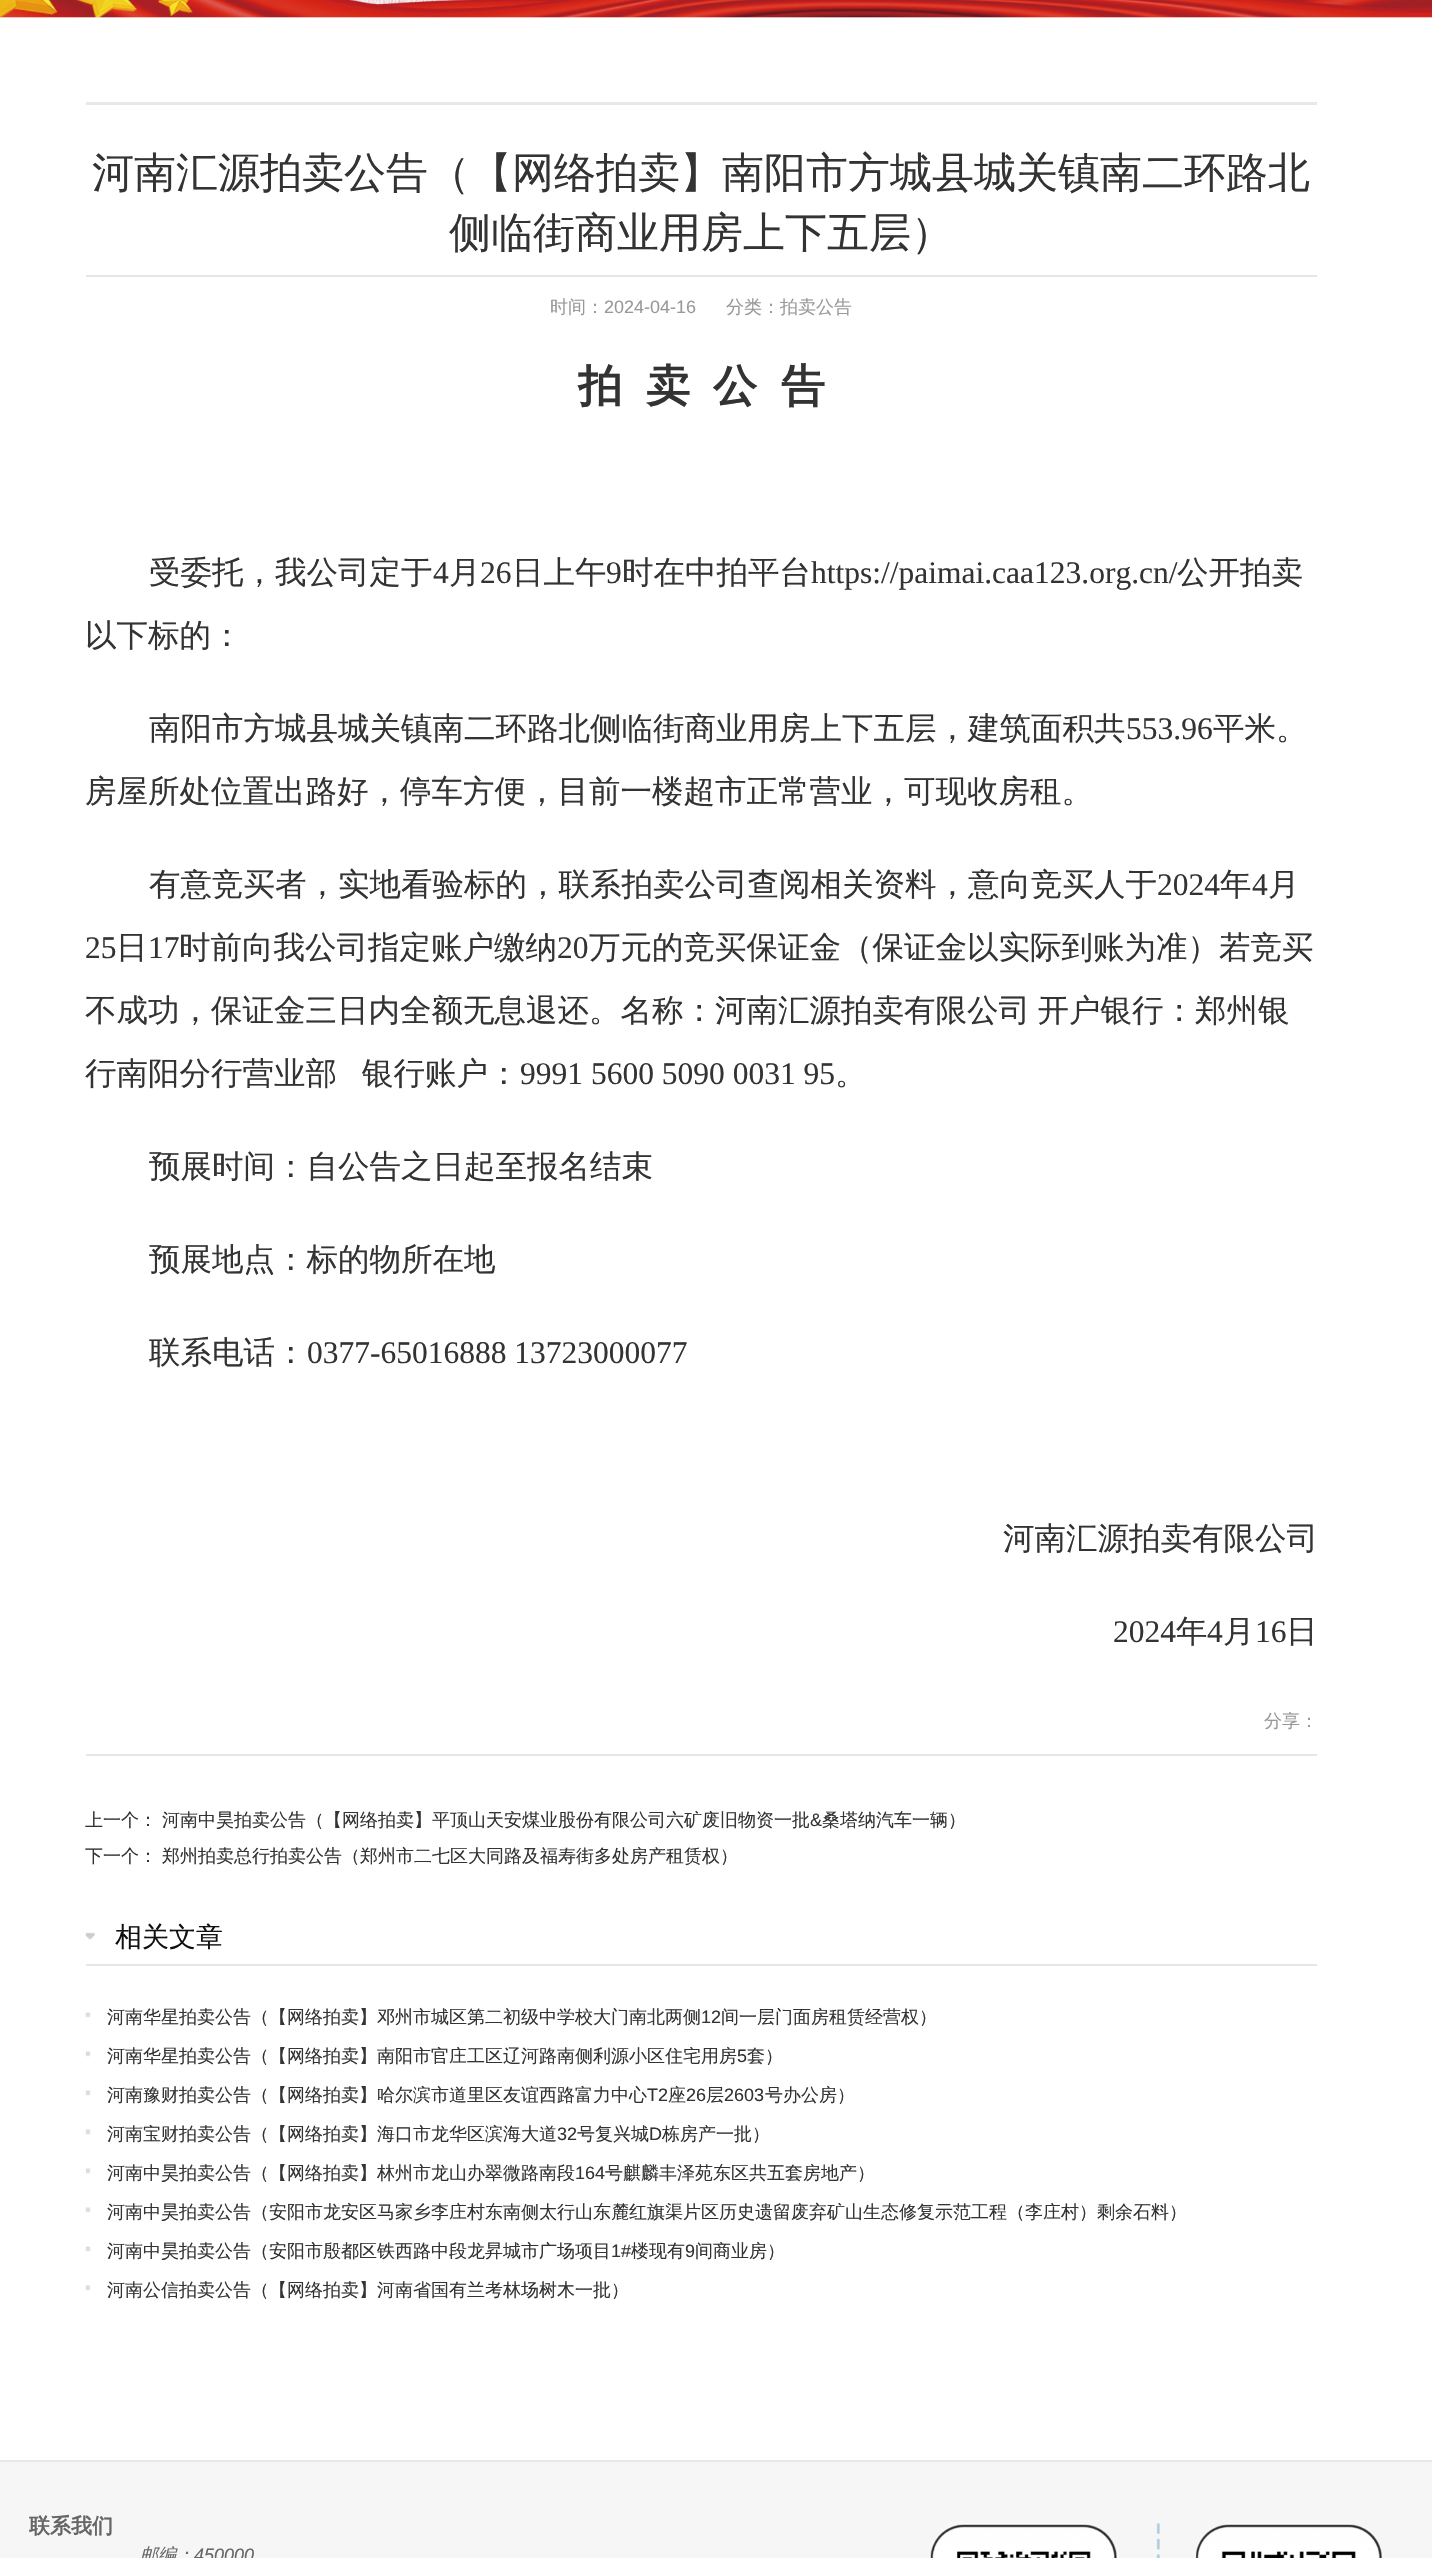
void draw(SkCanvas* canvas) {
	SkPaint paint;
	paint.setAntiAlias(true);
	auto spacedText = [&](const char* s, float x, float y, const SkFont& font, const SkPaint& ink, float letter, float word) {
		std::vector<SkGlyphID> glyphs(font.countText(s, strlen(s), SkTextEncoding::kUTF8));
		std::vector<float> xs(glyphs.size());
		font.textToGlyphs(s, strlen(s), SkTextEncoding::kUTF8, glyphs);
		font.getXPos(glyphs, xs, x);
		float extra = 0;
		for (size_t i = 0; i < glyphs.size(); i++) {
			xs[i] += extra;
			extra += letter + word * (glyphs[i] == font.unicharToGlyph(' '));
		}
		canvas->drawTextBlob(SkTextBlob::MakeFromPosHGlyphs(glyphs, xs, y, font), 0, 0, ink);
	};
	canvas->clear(0xffffffff);
	paint.setColor(0xfff0f0f0);
	canvas->drawRect(SkRect::MakeXYWH(0, 17, 1432, 1), paint);
	canvas->drawImageRect(SkImages::DeferredFromEncodedData(SkData::MakeFromFileName("img1.png")), SkRect::MakeXYWH(0, 0, 1432, 18), SkSamplingOptions());
	paint.setColor(0xffe8e8e8);
	canvas->drawRect(SkRect::MakeXYWH(86, 102, 1231, 3), paint);
	paint.setColor(0xffe6e6e6);
	canvas->drawRect(SkRect::MakeXYWH(86, 275, 1231, 2), paint);
	SkFont f1(fontMgr->matchFamilyStyle("WenQuanYi Zen Hei", SkFontStyle(500, SkFontStyle::kNormal_Width, SkFontStyle::kUpright_Slant)), 42);
	f1.setSubpixel(true);
	paint.setColor(0xff333333);
	canvas->drawString("河南汇源拍卖公告（【网络拍卖】南阳市方城县城关镇南二环路北", 92, 187, f1, paint);
	canvas->drawString("侧临街商业用房上下五层）", 449, 247, f1, paint);
	SkFont f2(fontMgr->matchFamilyStyle("WenQuanYi Zen Hei", SkFontStyle(500, SkFontStyle::kNormal_Width, SkFontStyle::kUpright_Slant)), 18);
	f2.setSubpixel(true);
	paint.setColor(0xff999999);
	canvas->drawString("时间：", 550, 313, f2, paint);
	SkFont f3(fontMgr->matchFamilyStyle("Liberation Sans", SkFontStyle::Normal()), 18);
	f3.setSubpixel(true);
	canvas->drawString("2024-04-16", 604, 313, f3, paint);
	canvas->drawString("分类：拍卖公告", 726, 313, f2, paint);
	SkFont f4(fontMgr->matchFamilyStyle("WenQuanYi Zen Hei", SkFontStyle::Bold()), 44);
	f4.setSubpixel(true);
	paint.setColor(0xff333333);
	canvas->drawString("拍", 578, 401, f4, paint);
	canvas->drawString("卖", 646, 401, f4, paint);
	canvas->drawString("公", 713, 401, f4, paint);
	canvas->drawString("告", 781, 401, f4, paint);
	SkFont f5(fontMgr->matchFamilyStyle("WenQuanYi Zen Hei", SkFontStyle(500, SkFontStyle::kNormal_Width, SkFontStyle::kUpright_Slant)), 31.5);
	f5.setSubpixel(true);
	canvas->drawString("受委托，我公司定于", 149, 583, f5, paint);
	SkFont f6(fontMgr->matchFamilyStyle("Liberation Serif", SkFontStyle::Normal()), 31.5);
	f6.setSubpixel(true);
	canvas->drawString("4", 433, 583, f6, paint);
	canvas->drawString("月", 449, 583, f5, paint);
	canvas->drawString("26", 480, 583, f6, paint);
	canvas->drawString("日上午", 512, 583, f5, paint);
	canvas->drawString("9", 606, 583, f6, paint);
	canvas->drawString("时在中拍平台", 622, 583, f5, paint);
	canvas->drawString("https://paimai.caa123.org.cn/", 811, 583, f6, paint);
	canvas->drawString("公开拍卖", 1177, 583, f5, paint);
	canvas->drawString("以下标的：", 85, 646, f5, paint);
	canvas->drawString("南阳市方城县城关镇南二环路北侧临街商业用房上下五层，建筑面积共", 149, 739, f5, paint);
	canvas->drawString("553.96", 1126, 739, f6, paint);
	canvas->drawString("平米。", 1213, 739, f5, paint);
	canvas->drawString("房屋所处位置出路好，停车方便，目前一楼超市正常营业，可现收房租。", 85, 802, f5, paint);
	canvas->drawString("有意竞买者，实地看验标的，联系拍卖公司查阅相关资料，意向竞买人于", 149, 895, f5, paint);
	canvas->drawString("2024", 1157, 895, f6, paint);
	canvas->drawString("年", 1220, 895, f5, paint);
	canvas->drawString("4", 1252, 895, f6, paint);
	canvas->drawString("月", 1268, 895, f5, paint);
	canvas->drawString("25", 85, 958, f6, paint);
	canvas->drawString("日", 116, 958, f5, paint);
	canvas->drawString("17", 148, 958, f6, paint);
	canvas->drawString("时前向我公司指定账户缴纳", 179, 958, f5, paint);
	canvas->drawString("20", 557, 958, f6, paint);
	canvas->drawString("万元的竞买保证金（保证金以实际到账为准）若竞买", 589, 958, f5, paint);
	spacedText("不成功，保证金三日内全额无息退还。名称：河南汇源拍卖有限公司 开户银行：郑州银", 85, 1021, f5, paint, 0, -2);
	canvas->drawString("行南阳分行营业部", 85, 1084, f5, paint);
	canvas->drawString("银行账户：", 362, 1084, f5, paint);
	canvas->drawString("9991 5600 5090 0031 95", 520, 1084, f6, paint);
	canvas->drawString("。", 835, 1084, f5, paint);
	canvas->drawString("预展时间：自公告之日起至报名结束", 149, 1177, f5, paint);
	canvas->drawString("预展地点：标的物所在地", 149, 1270, f5, paint);
	canvas->drawString("联系电话：", 149, 1363, f5, paint);
	canvas->drawString("0377-65016888 13723000077", 307, 1363, f6, paint);
	canvas->drawString("河南汇源拍卖有限公司", 1003, 1549, f5, paint);
	canvas->drawString("2024", 1113, 1642, f6, paint);
	canvas->drawString("年", 1176, 1642, f5, paint);
	canvas->drawString("4", 1207, 1642, f6, paint);
	canvas->drawString("月", 1223, 1642, f5, paint);
	canvas->drawString("16", 1255, 1642, f6, paint);
	canvas->drawString("日", 1286, 1642, f5, paint);
	paint.setColor(0xffe6e6e6);
	canvas->drawRect(SkRect::MakeXYWH(86, 1754, 1231, 2), paint);
	paint.setColor(0xff999999);
	canvas->drawString("分享：", 1264, 1727, f2, paint);
	paint.setColor(0xff333333);
	canvas->drawString("上一个：", 85, 1826, f2, paint);
	canvas->drawString("河南中昊拍卖公告（【网络拍卖】平顶山天安煤业股份有限公司六矿废旧物资一批", 162, 1826, f2, paint);
	canvas->drawString("&", 810, 1826, f3, paint);
	canvas->drawString("桑塔纳汽车一辆）", 822, 1826, f2, paint);
	canvas->drawString("下一个：", 85, 1862, f2, paint);
	canvas->drawString("郑州拍卖总行拍卖公告（郑州市二七区大同路及福寿街多处房产租赁权）", 162, 1862, f2, paint);
	canvas->drawImageRect(SkImages::DeferredFromEncodedData(SkData::MakeFromFileName("img2.png")), SkRect::MakeXYWH(85, 1932, 10, 8), SkSamplingOptions());
	paint.setColor(0xffe6e6e6);
	canvas->drawRect(SkRect::MakeXYWH(86, 1964, 1231, 2), paint);
	SkFont f7(fontMgr->matchFamilyStyle("WenQuanYi Zen Hei", SkFontStyle(500, SkFontStyle::kNormal_Width, SkFontStyle::kUpright_Slant)), 27);
	f7.setSubpixel(true);
	paint.setColor(0xff111111);
	canvas->drawString("相关文章", 115, 1946, f7, paint);
	canvas->drawImageRect(SkImages::DeferredFromEncodedData(SkData::MakeFromFileName("img3.png")), SkRect::MakeXYWH(85, 2012, 6, 6), SkSamplingOptions());
	paint.setColor(0xff333333);
	canvas->drawString("河南华星拍卖公告（【网络拍卖】邓州市城区第二初级中学校大门南北两侧", 107, 2023, f2, paint);
	canvas->drawString("12", 701, 2023, f3, paint);
	canvas->drawString("间一层门面房租赁经营权）", 721, 2023, f2, paint);
	canvas->drawImageRect(SkImages::DeferredFromEncodedData(SkData::MakeFromFileName("img4.png")), SkRect::MakeXYWH(85, 2051, 6, 6), SkSamplingOptions());
	canvas->drawString("河南华星拍卖公告（【网络拍卖】南阳市官庄工区辽河路南侧利源小区住宅用房", 107, 2062, f2, paint);
	canvas->drawString("5", 737, 2062, f3, paint);
	canvas->drawString("套）", 747, 2062, f2, paint);
	canvas->drawImageRect(SkImages::DeferredFromEncodedData(SkData::MakeFromFileName("img3.png")), SkRect::MakeXYWH(85, 2090, 6, 6), SkSamplingOptions());
	canvas->drawString("河南豫财拍卖公告（【网络拍卖】哈尔滨市道里区友谊西路富力中心", 107, 2101, f2, paint);
	canvas->drawString("T2", 647, 2101, f3, paint);
	canvas->drawString("座", 668, 2101, f2, paint);
	canvas->drawString("26", 686, 2101, f3, paint);
	canvas->drawString("层", 706, 2101, f2, paint);
	canvas->drawString("2603", 724, 2101, f3, paint);
	canvas->drawString("号办公房）", 765, 2101, f2, paint);
	canvas->drawImageRect(SkImages::DeferredFromEncodedData(SkData::MakeFromFileName("img3.png")), SkRect::MakeXYWH(85, 2129, 6, 6), SkSamplingOptions());
	canvas->drawString("河南宝财拍卖公告（【网络拍卖】海口市龙华区滨海大道", 107, 2140, f2, paint);
	canvas->drawString("32", 557, 2140, f3, paint);
	canvas->drawString("号复兴城", 577, 2140, f2, paint);
	canvas->drawString("D", 649, 2140, f3, paint);
	canvas->drawString("栋房产一批）", 662, 2140, f2, paint);
	canvas->drawImageRect(SkImages::DeferredFromEncodedData(SkData::MakeFromFileName("img4.png")), SkRect::MakeXYWH(85, 2168, 6, 6), SkSamplingOptions());
	canvas->drawString("河南中昊拍卖公告（【网络拍卖】林州市龙山办翠微路南段", 107, 2179, f2, paint);
	canvas->drawString("164", 575, 2179, f3, paint);
	canvas->drawString("号麒麟丰泽苑东区共五套房地产）", 605, 2179, f2, paint);
	canvas->drawImageRect(SkImages::DeferredFromEncodedData(SkData::MakeFromFileName("img3.png")), SkRect::MakeXYWH(85, 2207, 6, 6), SkSamplingOptions());
	canvas->drawString("河南中昊拍卖公告（安阳市龙安区马家乡李庄村东南侧太行山东麓红旗渠片区历史遗留废弃矿山生态修复示范工程（李庄村）剩余石料）", 107, 2218, f2, paint);
	canvas->drawImageRect(SkImages::DeferredFromEncodedData(SkData::MakeFromFileName("img4.png")), SkRect::MakeXYWH(85, 2246, 6, 6), SkSamplingOptions());
	canvas->drawString("河南中昊拍卖公告（安阳市殷都区铁西路中段龙昇城市广场项目", 107, 2257, f2, paint);
	canvas->drawString("1#", 611, 2257, f3, paint);
	canvas->drawString("楼现有", 631, 2257, f2, paint);
	canvas->drawString("9", 685, 2257, f3, paint);
	canvas->drawString("间商业房）", 695, 2257, f2, paint);
	canvas->drawImageRect(SkImages::DeferredFromEncodedData(SkData::MakeFromFileName("img3.png")), SkRect::MakeXYWH(85, 2285, 6, 6), SkSamplingOptions());
	canvas->drawString("河南公信拍卖公告（【网络拍卖】河南省国有兰考林场树木一批）", 107, 2296, f2, paint);
	paint.setColor(0xfff6f6f6);
	canvas->drawRect(SkRect::MakeXYWH(0, 2462, 1432, 96), paint);
	paint.setColor(0xffe8e8e8);
	canvas->drawRect(SkRect::MakeXYWH(0, 2460, 1432, 2), paint);
	SkFont f8(fontMgr->matchFamilyStyle("WenQuanYi Zen Hei", SkFontStyle::Bold()), 21);
	f8.setSubpixel(true);
	paint.setColor(0xff666666);
	canvas->drawString("联系我们", 29, 2533, f8, paint);
	SkFont f9(fontMgr->matchFamilyStyle("WenQuanYi Zen Hei", SkFontStyle(500, SkFontStyle::kNormal_Width, SkFontStyle::kItalic_Slant)), 18);
	f9.setSubpixel(true);
	canvas->drawString("邮编：", 140, 2561, f9, paint);
	SkFont f10(fontMgr->matchFamilyStyle("Liberation Sans", SkFontStyle::Italic()), 18);
	f10.setSubpixel(true);
	canvas->drawString("450000", 194, 2561, f10, paint);
	canvas->drawImageRect(SkImages::DeferredFromEncodedData(SkData::MakeFromFileName("img5.png")), SkRect::MakeXYWH(929, 2523, 454, 35), SkSamplingOptions());
}
